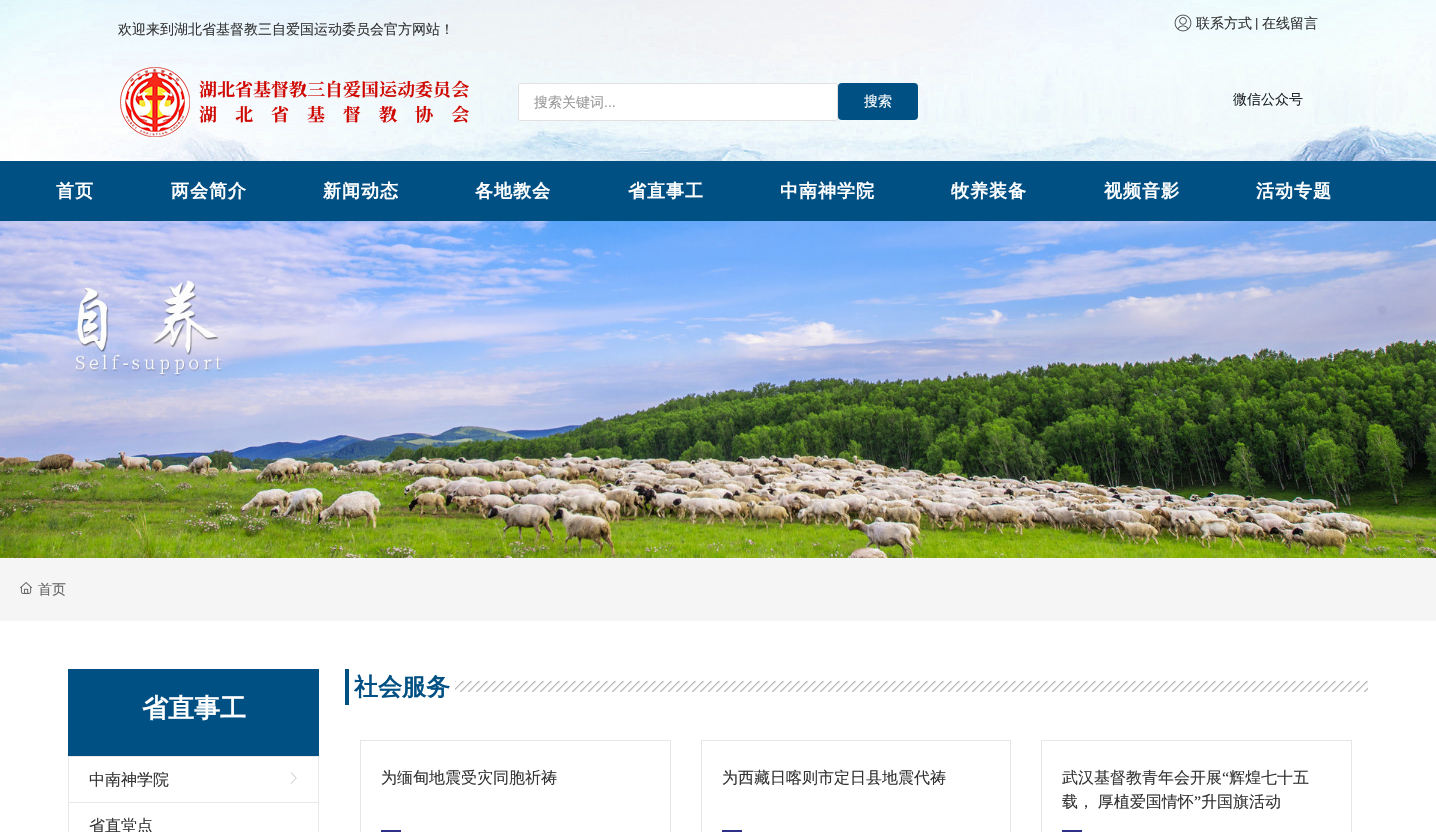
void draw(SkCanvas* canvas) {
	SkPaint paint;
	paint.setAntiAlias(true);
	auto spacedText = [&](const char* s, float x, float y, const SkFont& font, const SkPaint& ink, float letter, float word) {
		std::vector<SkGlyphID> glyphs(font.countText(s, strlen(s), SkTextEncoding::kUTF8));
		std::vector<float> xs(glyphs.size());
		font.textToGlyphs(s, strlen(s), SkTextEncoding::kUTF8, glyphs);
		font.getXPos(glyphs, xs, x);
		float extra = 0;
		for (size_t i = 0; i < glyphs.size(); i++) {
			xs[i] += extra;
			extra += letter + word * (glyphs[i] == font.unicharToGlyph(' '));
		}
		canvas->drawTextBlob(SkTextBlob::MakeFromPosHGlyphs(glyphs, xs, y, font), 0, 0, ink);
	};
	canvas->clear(0xffffffff);
	canvas->drawImageRect(SkImages::DeferredFromEncodedData(SkData::MakeFromFileName("img1.png")), SkRect::MakeXYWH(0, 0, 1436, 161), SkSamplingOptions());
	SkFont f1(fontMgr->matchFamilyStyle("WenQuanYi Zen Hei", SkFontStyle(500, SkFontStyle::kNormal_Width, SkFontStyle::kUpright_Slant)), 14);
	f1.setSubpixel(true);
	paint.setColor(0xff333333);
	canvas->drawString("欢迎来到湖北省基督教三自爱国运动委员会官方网站！", 118, 34, f1, paint);
	canvas->drawImageRect(SkImages::DeferredFromEncodedData(SkData::MakeFromFileName("img2.png")), SkRect::MakeXYWH(1174, 14, 18, 18), SkSamplingOptions());
	canvas->drawString("联系方式", 1196, 28, f1, paint);
	SkFont f2(fontMgr->matchFamilyStyle("Roboto", SkFontStyle::Normal()), 14);
	f2.setSubpixel(true);
	canvas->drawString("|", 1255, 28, f2, paint);
	canvas->drawString("在线留言", 1262, 28, f1, paint);
	canvas->drawImageRect(SkImages::DeferredFromEncodedData(SkData::MakeFromFileName("img3.png")), SkRect::MakeXYWH(120, 67, 349, 70), SkSamplingOptions());
	paint.setColor(0xffffffff);
	canvas->drawRect(SkRect::MakeXYWH(518, 83, 320, 38), paint);
	paint.setStroke(true);
	paint.setStrokeWidth(1);
	paint.setColor(0xffe1e1e1);
	canvas->drawRoundRect(SkRect::MakeXYWH(518.5, 83.5, 319, 37), 1.5, 1.5, paint);
	paint.setStroke(false);
	paint.setColor(0xff999999);
	canvas->drawString("搜索关键词", 534, 107, f1, paint);
	SkFont f3(fontMgr->matchFamilyStyle("Liberation Sans", SkFontStyle::Normal()), 14);
	f3.setSubpixel(true);
	canvas->drawString("...", 604, 107, f3, paint);
	paint.setColor(0xff005083);
	canvas->drawRoundRect(SkRect::MakeXYWH(838, 83, 80, 37), 4, 4, paint);
	paint.setColor(0xffffffff);
	canvas->drawString("搜索", 864, 106, f1, paint);
	paint.setColor(0xff212529);
	canvas->drawString("微信公众号", 1233, 104, f1, paint);
	paint.setColor(0xff005083);
	canvas->drawRect(SkRect::MakeXYWH(0, 161, 1436, 60), paint);
	SkFont f4(fontMgr->matchFamilyStyle("WenQuanYi Zen Hei", SkFontStyle::Bold()), 18);
	f4.setSubpixel(true);
	paint.setColor(0xffffffff);
	spacedText("首页", 56, 197, f4, paint, 1, 0);
	spacedText("两会简介", 171, 197, f4, paint, 1, 0);
	spacedText("新闻动态", 323, 197, f4, paint, 1, 0);
	spacedText("各地教会", 475, 197, f4, paint, 1, 0);
	spacedText("省直事工", 628, 197, f4, paint, 1, 0);
	spacedText("中南神学院", 780, 197, f4, paint, 1, 0);
	spacedText("牧养装备", 951, 197, f4, paint, 1, 0);
	spacedText("视频音影", 1104, 197, f4, paint, 1, 0);
	spacedText("活动专题", 1256, 197, f4, paint, 1, 0);
	canvas->drawImageRect(SkImages::DeferredFromEncodedData(SkData::MakeFromFileName("img4.png")), SkRect::MakeXYWH(0, 221, 1436, 337), SkSamplingOptions());
	paint.setColor(0xfff5f5f5);
	canvas->drawRect(SkRect::MakeXYWH(0, 558, 1436, 63), paint);
	canvas->drawImageRect(SkImages::DeferredFromEncodedData(SkData::MakeFromFileName("img5.png")), SkRect::MakeXYWH(20, 582, 12, 12), SkSamplingOptions());
	paint.setColor(0xff666666);
	canvas->drawString("首页", 38, 594, f1, paint);
	paint.setColor(0xff005083);
	canvas->drawRect(SkRect::MakeXYWH(68, 669, 251, 87), paint);
	SkFont f5(fontMgr->matchFamilyStyle("WenQuanYi Zen Hei", SkFontStyle::Bold()), 26);
	f5.setSubpixel(true);
	paint.setColor(0xffffffff);
	canvas->drawString("省直事工", 142, 717, f5, paint);
	paint.setStroke(true);
	paint.setColor(0xffe8e8e8);
	canvas->drawRect(SkRect::MakeXYWH(68.5, 756.5, 250, 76), paint);
	paint.setStroke(false);
	canvas->drawRect(SkRect::MakeXYWH(69, 802, 249, 1), paint);
	SkFont f6(fontMgr->matchFamilyStyle("WenQuanYi Zen Hei", SkFontStyle(500, SkFontStyle::kNormal_Width, SkFontStyle::kUpright_Slant)), 16);
	f6.setSubpixel(true);
	paint.setColor(0xff333333);
	canvas->drawString("中南神学院", 89, 785, f6, paint);
	canvas->drawImageRect(SkImages::DeferredFromEncodedData(SkData::MakeFromFileName("img6.png")), SkRect::MakeXYWH(290, 772, 7, 12), SkSamplingOptions());
	canvas->drawString("省直堂点", 89, 831, f6, paint);
	canvas->drawImageRect(SkImages::DeferredFromEncodedData(SkData::MakeFromFileName("img7.png")), SkRect::MakeXYWH(455, 681, 913, 11), SkSamplingOptions());
	paint.setColor(0xff005083);
	canvas->drawRect(SkRect::MakeXYWH(345, 669, 4, 36), paint);
	SkFont f7(fontMgr->matchFamilyStyle("WenQuanYi Zen Hei", SkFontStyle::Bold()), 24);
	f7.setSubpixel(true);
	canvas->drawString("社会服务", 354, 695, f7, paint);
	paint.setStroke(true);
	paint.setColor(0xffe6e6e6);
	canvas->drawRect(SkRect::MakeXYWH(360.5, 740.5, 310, 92), paint);
	paint.setStroke(false);
	paint.setColor(0xff333333);
	canvas->drawString("为缅甸地震受灾同胞祈祷", 381, 783, f6, paint);
	paint.setColor(0xff2f308a);
	canvas->drawRect(SkRect::MakeXYWH(381, 830, 20, 2), paint);
	paint.setStroke(true);
	paint.setColor(0xffe6e6e6);
	canvas->drawRect(SkRect::MakeXYWH(701.5, 740.5, 309, 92), paint);
	paint.setStroke(false);
	paint.setColor(0xff333333);
	canvas->drawString("为西藏日喀则市定日县地震代祷", 722, 783, f6, paint);
	paint.setColor(0xff2f308a);
	canvas->drawRect(SkRect::MakeXYWH(722, 830, 20, 2), paint);
	paint.setStroke(true);
	paint.setColor(0xffe6e6e6);
	canvas->drawRect(SkRect::MakeXYWH(1041.5, 740.5, 310, 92), paint);
	paint.setStroke(false);
	paint.setColor(0xff333333);
	canvas->drawString("武汉基督教青年会开展", 1062, 783, f6, paint);
	SkFont f8(fontMgr->matchFamilyStyle("Liberation Serif", SkFontStyle::Normal()), 16);
	f8.setSubpixel(true);
	canvas->drawString("“", 1222, 783, f8, paint);
	canvas->drawString("辉煌七十五", 1229, 783, f6, paint);
	spacedText("载， 厚植爱国情怀", 1062, 807, f6, paint, 0, -1);
	canvas->drawString("”", 1194, 807, f8, paint);
	canvas->drawString("升国旗活动", 1201, 807, f6, paint);
	paint.setColor(0xff2f308a);
	canvas->drawRect(SkRect::MakeXYWH(1062, 830, 20, 2), paint);
}
